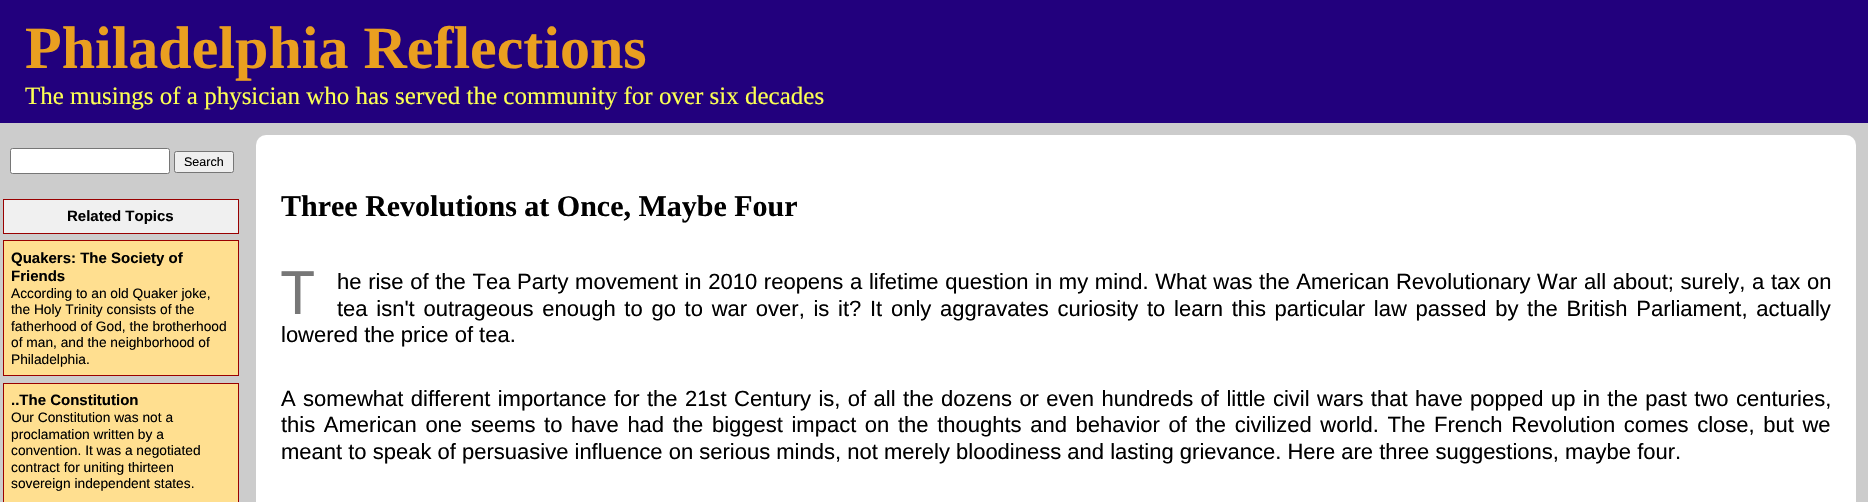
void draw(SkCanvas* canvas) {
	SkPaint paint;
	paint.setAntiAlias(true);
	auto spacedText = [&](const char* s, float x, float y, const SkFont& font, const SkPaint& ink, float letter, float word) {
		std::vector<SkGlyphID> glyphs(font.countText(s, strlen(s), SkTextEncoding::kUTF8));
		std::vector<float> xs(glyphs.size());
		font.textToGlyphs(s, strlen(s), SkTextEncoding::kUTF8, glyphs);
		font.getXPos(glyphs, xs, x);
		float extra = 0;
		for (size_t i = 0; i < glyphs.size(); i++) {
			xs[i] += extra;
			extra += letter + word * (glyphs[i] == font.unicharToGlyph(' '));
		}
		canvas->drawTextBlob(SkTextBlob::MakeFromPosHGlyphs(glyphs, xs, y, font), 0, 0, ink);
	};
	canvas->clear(0xffcccccc);
	paint.setColor(0xff22007d);
	canvas->drawRect(SkRect::MakeXYWH(0, 0, 1868, 123), paint);
	SkFont f1(fontMgr->matchFamilyStyle("Liberation Serif", SkFontStyle::Bold()), 60);
	f1.setSubpixel(true);
	paint.setColor(0xffea9f20);
	canvas->drawString("Philadelphia Reflections", 25, 68, f1, paint);
	SkFont f2(fontMgr->matchFamilyStyle("Liberation Serif", SkFontStyle::Normal()), 25);
	f2.setSubpixel(true);
	paint.setColor(0xfffcff53);
	canvas->drawString("The musings of a physician who has served the community for over six decades", 25, 104, f2, paint);
	paint.setColor(0xffffffff);
	canvas->drawRoundRect(SkRect::MakeXYWH(10.5, 148.5, 159, 25), 2, 2, paint);
	paint.setStroke(true);
	paint.setStrokeWidth(1);
	paint.setColor(0xff767676);
	canvas->drawRoundRect(SkRect::MakeXYWH(10.5, 148.5, 159, 25), 2, 2, paint);
	paint.setStroke(false);
	paint.setColor(0xffefefef);
	canvas->drawRoundRect(SkRect::MakeXYWH(174.5, 151.5, 59, 21), 2, 2, paint);
	paint.setStroke(true);
	paint.setColor(0xff767676);
	canvas->drawRoundRect(SkRect::MakeXYWH(174.5, 151.5, 59, 21), 2, 2, paint);
	SkFont f3(fontMgr->matchFamilyStyle("Liberation Sans", SkFontStyle::Normal()), 12.5);
	f3.setSubpixel(true);
	paint.setStroke(false);
	paint.setColor(0xff000000);
	canvas->drawString("Search", 184, 166, f3, paint);
	paint.setColor(0xfff0f0f0);
	canvas->drawRect(SkRect::MakeXYWH(3.5, 199.5, 235, 34), paint);
	paint.setStroke(true);
	paint.setColor(0xff990000);
	canvas->drawRect(SkRect::MakeXYWH(3.5, 199.5, 235, 34), paint);
	SkFont f4(fontMgr->matchFamilyStyle("Liberation Sans", SkFontStyle::Bold()), 15);
	f4.setSubpixel(true);
	paint.setStroke(false);
	paint.setColor(0xff000000);
	canvas->drawString("Related Topics", 67, 221, f4, paint);
	paint.setColor(0xffffdf90);
	canvas->drawRect(SkRect::MakeXYWH(3.5, 240.5, 235, 135), paint);
	paint.setStroke(true);
	paint.setColor(0xff990000);
	canvas->drawRect(SkRect::MakeXYWH(3.5, 240.5, 235, 135), paint);
	paint.setStroke(false);
	paint.setColor(0xff000000);
	canvas->drawString("Quakers: The Society of", 11, 263, f4, paint);
	canvas->drawString("Friends", 11, 281, f4, paint);
	SkFont f5(fontMgr->matchFamilyStyle("Liberation Sans", SkFontStyle::Normal()), 13.75);
	f5.setSubpixel(true);
	canvas->drawString("According to an old Quaker joke,", 11, 298, f5, paint);
	canvas->drawString("the Holy Trinity consists of the", 11, 314, f5, paint);
	canvas->drawString("fatherhood of God, the brotherhood", 11, 331, f5, paint);
	canvas->drawString("of man, and the neighborhood of", 11, 347, f5, paint);
	canvas->drawString("Philadelphia.", 11, 364, f5, paint);
	paint.setColor(0xffffdf90);
	canvas->drawRect(SkRect::MakeXYWH(3.5, 383.5, 235, 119), paint);
	paint.setStroke(true);
	paint.setColor(0xff990000);
	canvas->drawRect(SkRect::MakeXYWH(3.5, 383.5, 235, 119), paint);
	paint.setStroke(false);
	paint.setColor(0xff000000);
	canvas->drawString("..The Constitution", 11, 405, f4, paint);
	canvas->drawString("Our Constitution was not a", 11, 422, f5, paint);
	canvas->drawString("proclamation written by a", 11, 439, f5, paint);
	canvas->drawString("convention. It was a negotiated", 11, 455, f5, paint);
	canvas->drawString("contract for uniting thirteen", 11, 472, f5, paint);
	canvas->drawString("sovereign independent states.", 11, 488, f5, paint);
	paint.setColor(0xffffffff);
	canvas->drawRoundRect(SkRect::MakeXYWH(256, 135, 1600, 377), 10, 10, paint);
	SkFont f6(fontMgr->matchFamilyStyle("Liberation Serif", SkFontStyle::Bold()), 30);
	f6.setSubpixel(true);
	paint.setColor(0xff000000);
	canvas->drawString("Three Revolutions at Once, Maybe Four", 281, 216, f6, paint);
	SkFont f7(fontMgr->matchFamilyStyle("Noto Sans", SkFontStyle::Normal()), 60);
	f7.setSubpixel(true);
	paint.setColor(0xff777777);
	canvas->drawString("T", 281, 314, f7, paint);
	SkFont f8(fontMgr->matchFamilyStyle("Liberation Sans", SkFontStyle::Normal()), 22);
	f8.setSubpixel(true);
	paint.setColor(0xff000000);
	spacedText("he rise of the Tea Party movement in 2010 reopens a lifetime question in my mind. What was the American Revolutionary War all about; surely, a tax on", 337, 289, f8, paint, 0, 0.55);
	spacedText("tea isn't outrageous enough to go to war over, is it? It only aggravates curiosity to learn this particular law passed by the British Parliament, actually", 337, 316, f8, paint, 0, 2.6);
	canvas->drawString("lowered the price of tea.", 281, 342, f8, paint);
	spacedText("A somewhat different importance for the 21st Century is, of all the dozens or even hundreds of little civil wars that have popped up in the past two centuries,", 281, 406, f8, paint, 0, 1.3);
	spacedText("this American one seems to have had the biggest impact on the thoughts and behavior of the civilized world. The French Revolution comes close, but we", 281, 432, f8, paint, 0, 2.5);
	canvas->drawString("meant to speak of persuasive influence on serious minds, not merely bloodiness and lasting grievance. Here are three suggestions, maybe four.", 281, 459, f8, paint);
}
